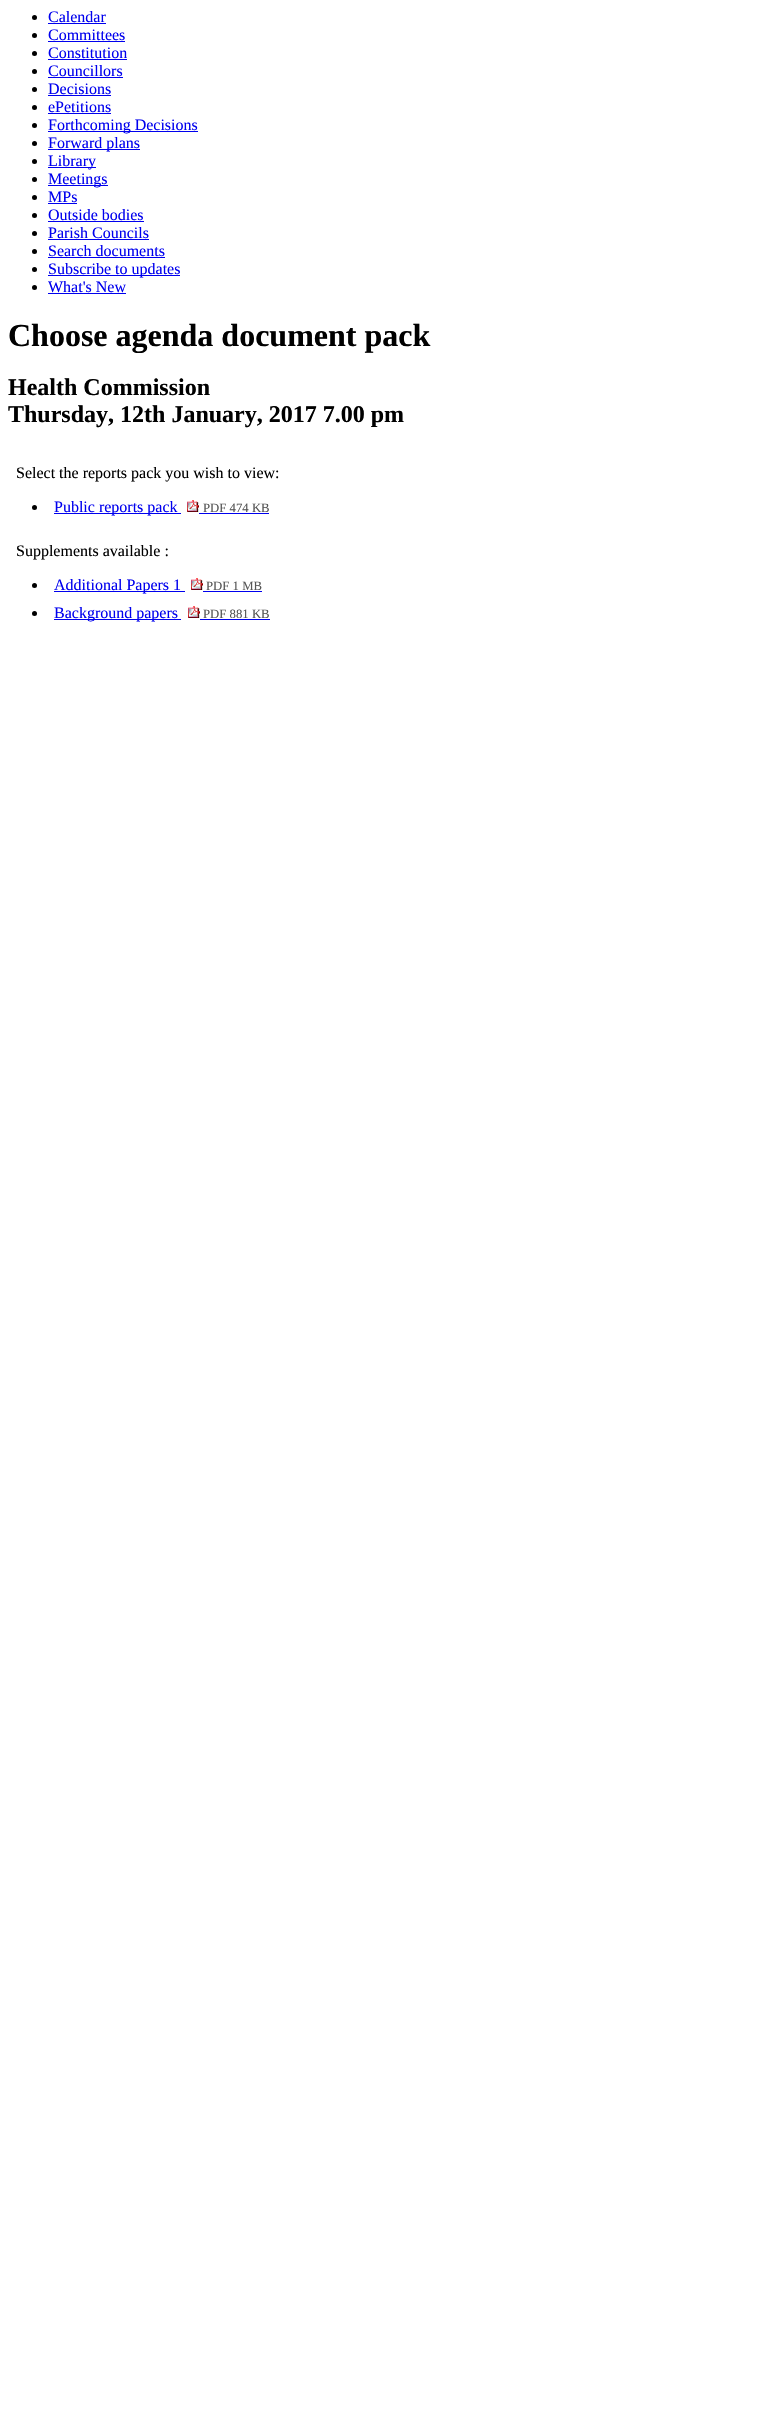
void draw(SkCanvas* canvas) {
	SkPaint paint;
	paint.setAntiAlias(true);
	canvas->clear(0xffffffff);
	paint.setColor(0xff000000);
	canvas->drawCircle(34.5, 17.5, 2.5, paint);
	SkFont f1(fontMgr->matchFamilyStyle("Liberation Serif", SkFontStyle::Normal()), 16);
	f1.setSubpixel(true);
	paint.setColor(0xff0000ee);
	canvas->drawString("Calendar", 48, 22, f1, paint);
	canvas->drawRect(SkRect::MakeXYWH(48, 23, 58, 1), paint);
	paint.setColor(0xff000000);
	canvas->drawCircle(34.5, 35.5, 2.5, paint);
	paint.setColor(0xff0000ee);
	canvas->drawString("Committees", 48, 40, f1, paint);
	canvas->drawRect(SkRect::MakeXYWH(48, 41, 77, 1), paint);
	paint.setColor(0xff000000);
	canvas->drawCircle(34.5, 53.5, 2.5, paint);
	paint.setColor(0xff0000ee);
	canvas->drawString("Constitution", 48, 58, f1, paint);
	canvas->drawRect(SkRect::MakeXYWH(48, 59, 79, 1), paint);
	paint.setColor(0xff000000);
	canvas->drawCircle(34.5, 71.5, 2.5, paint);
	paint.setColor(0xff0000ee);
	canvas->drawString("Councillors", 48, 76, f1, paint);
	canvas->drawRect(SkRect::MakeXYWH(48, 77, 75, 1), paint);
	paint.setColor(0xff000000);
	canvas->drawCircle(34.5, 89.5, 2.5, paint);
	paint.setColor(0xff0000ee);
	canvas->drawString("Decisions", 48, 94, f1, paint);
	canvas->drawRect(SkRect::MakeXYWH(48, 95, 63, 1), paint);
	paint.setColor(0xff000000);
	canvas->drawCircle(34.5, 107.5, 2.5, paint);
	paint.setColor(0xff0000ee);
	canvas->drawString("ePetitions", 48, 112, f1, paint);
	canvas->drawRect(SkRect::MakeXYWH(48, 113, 63, 1), paint);
	paint.setColor(0xff000000);
	canvas->drawCircle(34.5, 125.5, 2.5, paint);
	paint.setColor(0xff0000ee);
	canvas->drawRect(SkRect::MakeXYWH(48, 131, 150, 1), paint);
	canvas->drawString("Forthcoming Decisions", 48, 130, f1, paint);
	paint.setColor(0xff000000);
	canvas->drawCircle(34.5, 143.5, 2.5, paint);
	paint.setColor(0xff0000ee);
	canvas->drawRect(SkRect::MakeXYWH(48, 149, 92, 1), paint);
	canvas->drawString("Forward plans", 48, 148, f1, paint);
	paint.setColor(0xff000000);
	canvas->drawCircle(34.5, 161.5, 2.5, paint);
	paint.setColor(0xff0000ee);
	canvas->drawRect(SkRect::MakeXYWH(48, 167, 48, 1), paint);
	canvas->drawString("Library", 48, 166, f1, paint);
	paint.setColor(0xff000000);
	canvas->drawCircle(34.5, 179.5, 2.5, paint);
	paint.setColor(0xff0000ee);
	canvas->drawRect(SkRect::MakeXYWH(48, 185, 60, 1), paint);
	canvas->drawString("Meetings", 48, 184, f1, paint);
	paint.setColor(0xff000000);
	canvas->drawCircle(34.5, 197.5, 2.5, paint);
	paint.setColor(0xff0000ee);
	canvas->drawString("MPs", 48, 202, f1, paint);
	canvas->drawRect(SkRect::MakeXYWH(48, 203, 29, 1), paint);
	paint.setColor(0xff000000);
	canvas->drawCircle(34.5, 215.5, 2.5, paint);
	paint.setColor(0xff0000ee);
	canvas->drawString("Outside bodies", 48, 220, f1, paint);
	canvas->drawRect(SkRect::MakeXYWH(48, 221, 96, 1), paint);
	paint.setColor(0xff000000);
	canvas->drawCircle(34.5, 233.5, 2.5, paint);
	paint.setColor(0xff0000ee);
	canvas->drawString("Parish Councils", 48, 238, f1, paint);
	canvas->drawRect(SkRect::MakeXYWH(48, 239, 101, 1), paint);
	paint.setColor(0xff000000);
	canvas->drawCircle(34.5, 251.5, 2.5, paint);
	paint.setColor(0xff0000ee);
	canvas->drawString("Search documents", 48, 256, f1, paint);
	canvas->drawRect(SkRect::MakeXYWH(48, 257, 117, 1), paint);
	paint.setColor(0xff000000);
	canvas->drawCircle(34.5, 269.5, 2.5, paint);
	paint.setColor(0xff0000ee);
	canvas->drawRect(SkRect::MakeXYWH(48, 275, 132, 1), paint);
	canvas->drawString("Subscribe to updates", 48, 274, f1, paint);
	paint.setColor(0xff000000);
	canvas->drawCircle(34.5, 287.5, 2.5, paint);
	paint.setColor(0xff0000ee);
	canvas->drawString("What's New", 48, 292, f1, paint);
	canvas->drawRect(SkRect::MakeXYWH(48, 293, 78, 1), paint);
	SkFont f2(fontMgr->matchFamilyStyle("Liberation Serif", SkFontStyle::Bold()), 32);
	f2.setSubpixel(true);
	paint.setColor(0xff000000);
	canvas->drawString("Choose agenda document pack", 8, 346, f2, paint);
	SkFont f3(fontMgr->matchFamilyStyle("Liberation Serif", SkFontStyle::Bold()), 24);
	f3.setSubpixel(true);
	canvas->drawString("Health Commission", 8, 395, f3, paint);
	canvas->drawString("Thursday, 12th January, 2017 7.00 pm", 8, 422, f3, paint);
	canvas->drawString("Select the reports pack you wish to view:", 16, 478, f1, paint);
	canvas->drawCircle(34.5, 507.5, 2.5, paint);
	paint.setColor(0xff0000ee);
	canvas->drawRect(SkRect::MakeXYWH(54, 513, 127, 1), paint);
	canvas->drawString("Public reports pack", 54, 512, f1, paint);
	canvas->drawImageRect(SkImages::DeferredFromEncodedData(SkData::MakeFromFileName("img1.png")), SkRect::MakeXYWH(187, 500, 12, 12), SkSamplingOptions());
	SkFont f4(fontMgr->matchFamilyStyle("Liberation Serif", SkFontStyle::Normal()), 12.75);
	f4.setSubpixel(true);
	paint.setColor(0xff555555);
	canvas->drawString("PDF 474 KB", 203, 512, f4, paint);
	paint.setColor(0xff0000ee);
	canvas->drawRect(SkRect::MakeXYWH(199, 513, 70, 1), paint);
	paint.setColor(0xff000000);
	canvas->drawString("Supplements available :", 16, 556, f1, paint);
	canvas->drawCircle(34.5, 585.5, 2.5, paint);
	paint.setColor(0xff0000ee);
	canvas->drawRect(SkRect::MakeXYWH(54, 591, 131, 1), paint);
	canvas->drawString("Additional Papers 1", 54, 590, f1, paint);
	canvas->drawImageRect(SkImages::DeferredFromEncodedData(SkData::MakeFromFileName("img1.png")), SkRect::MakeXYWH(191, 578, 12, 12), SkSamplingOptions());
	paint.setColor(0xff555555);
	canvas->drawString("PDF 1 MB", 206, 590, f4, paint);
	paint.setColor(0xff0000ee);
	canvas->drawRect(SkRect::MakeXYWH(203, 591, 59, 1), paint);
	paint.setColor(0xff000000);
	canvas->drawCircle(34.5, 613.5, 2.5, paint);
	paint.setColor(0xff0000ee);
	canvas->drawRect(SkRect::MakeXYWH(54, 619, 127, 1), paint);
	canvas->drawString("Background papers", 54, 618, f1, paint);
	canvas->drawImageRect(SkImages::DeferredFromEncodedData(SkData::MakeFromFileName("img1.png")), SkRect::MakeXYWH(188, 606, 12, 12), SkSamplingOptions());
	paint.setColor(0xff555555);
	canvas->drawString("PDF 881 KB", 203, 618, f4, paint);
	paint.setColor(0xff0000ee);
	canvas->drawRect(SkRect::MakeXYWH(200, 619, 70, 1), paint);
}
